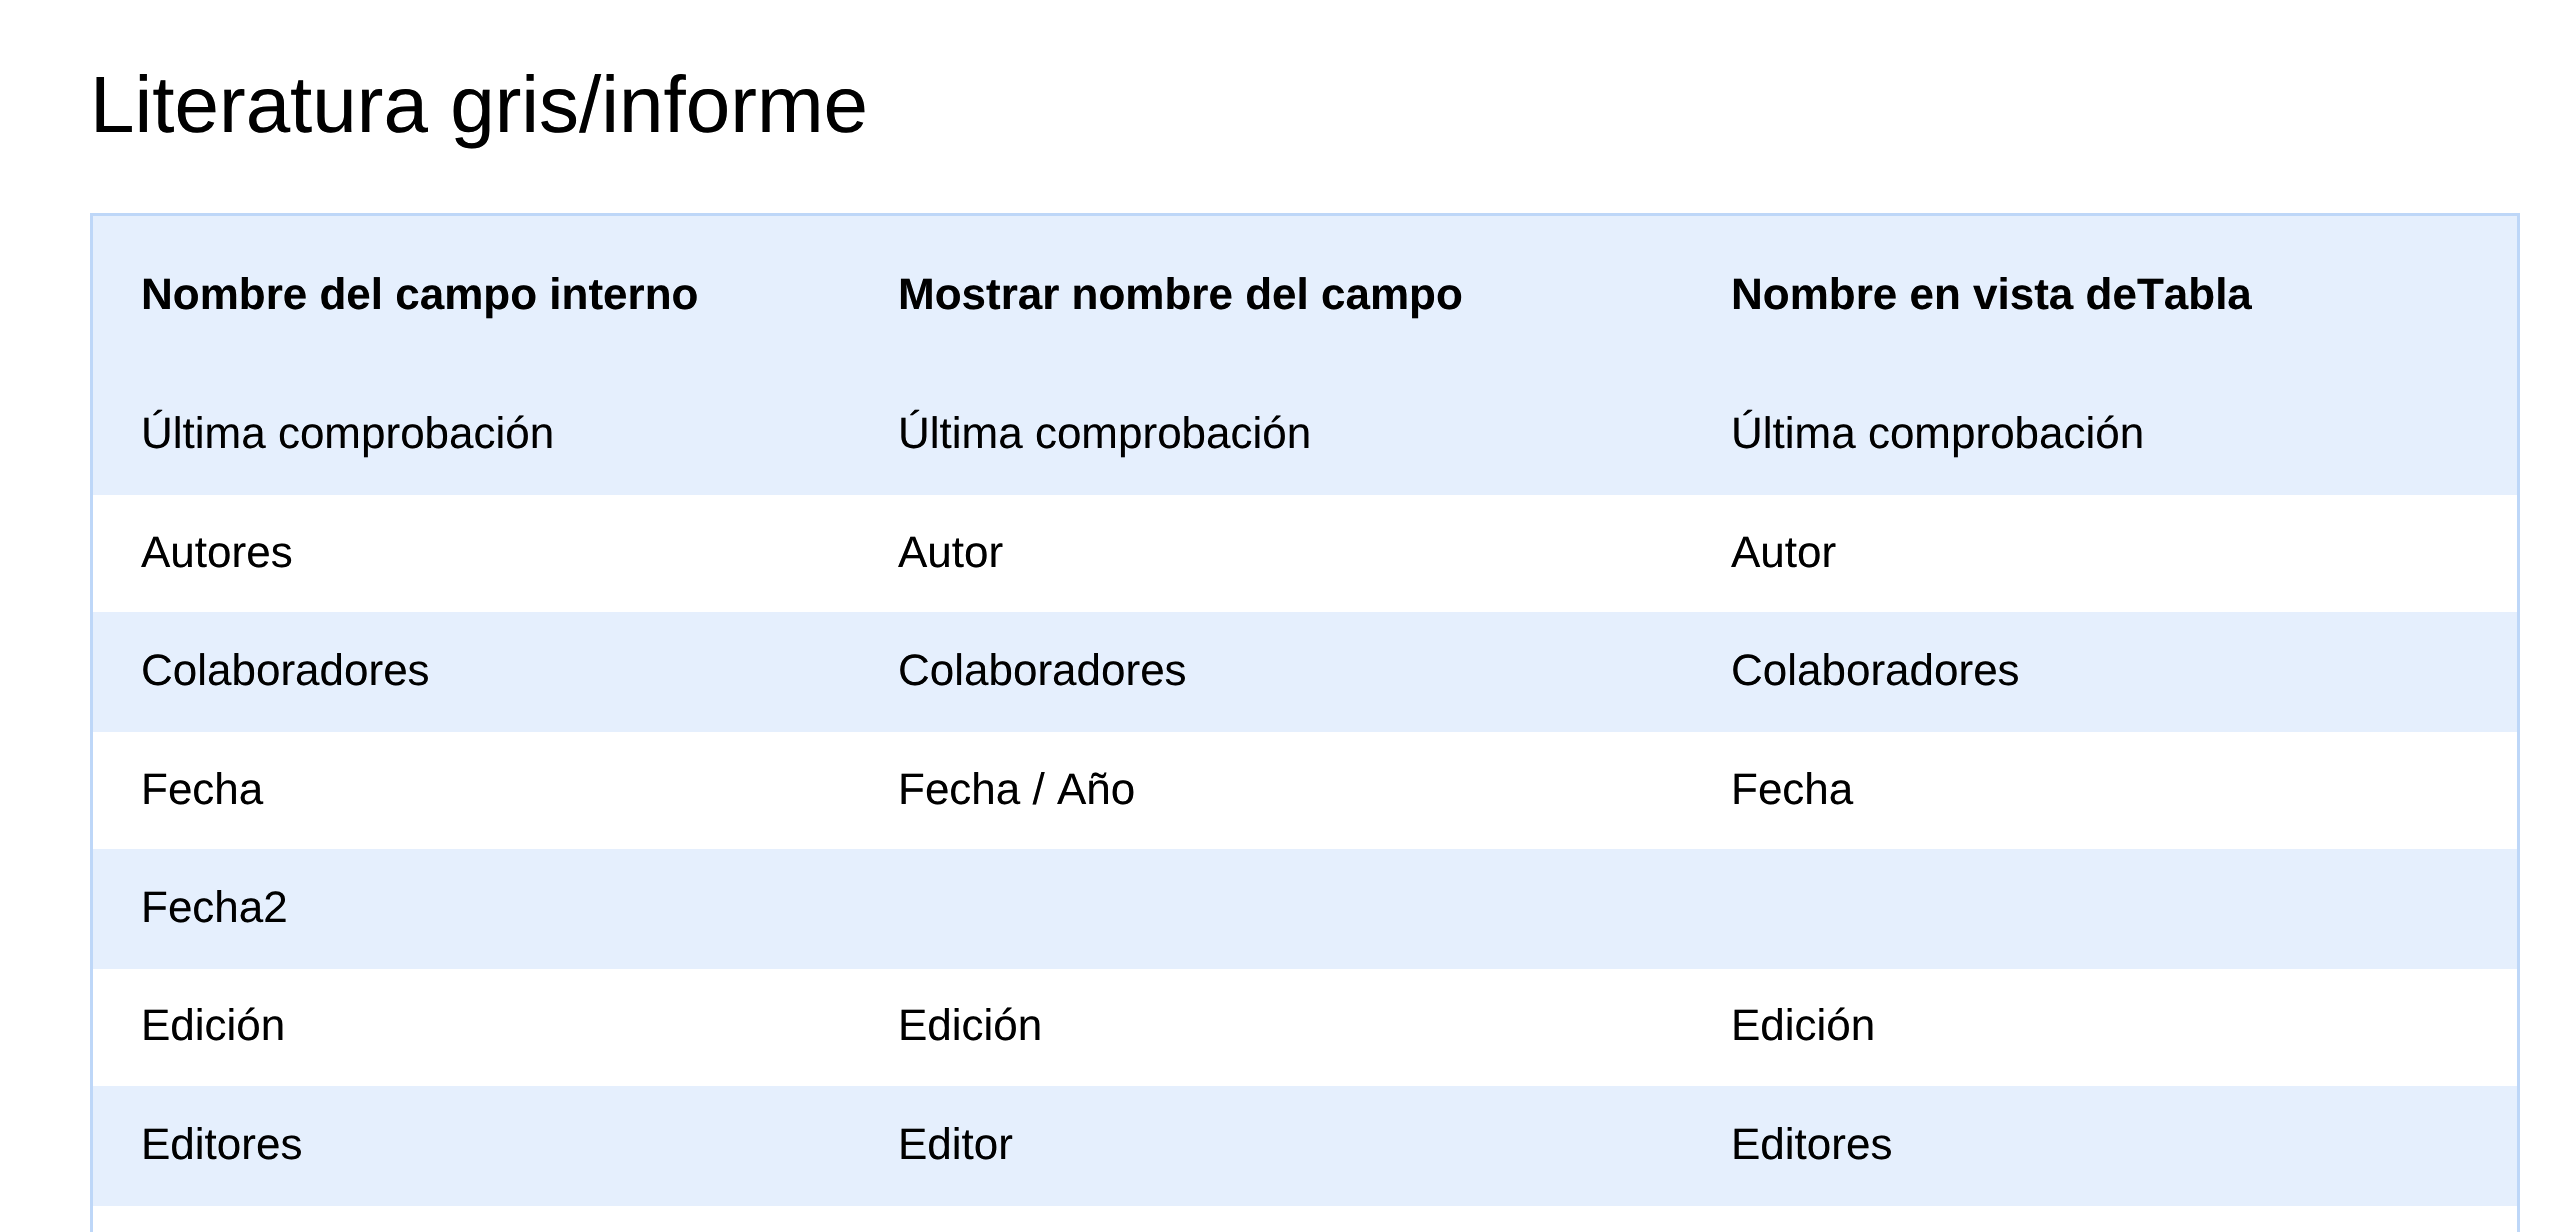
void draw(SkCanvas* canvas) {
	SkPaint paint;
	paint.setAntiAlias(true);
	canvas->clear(0xffffffff);
	SkFont f1(fontMgr->matchFamilyStyle("Liberation Sans", SkFontStyle::Normal()), 80);
	f1.setSubpixel(true);
	paint.setColor(0xff000000);
	canvas->drawString("Literatura gris/informe", 90, 132, f1, paint);
	paint.setStroke(true);
	paint.setStrokeWidth(3);
	paint.setColor(0xffbed7f8);
	canvas->drawRect(SkRect::MakeXYWH(91.5, 214.5, 2427, 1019), paint);
	paint.setStroke(false);
	paint.setColor(0xffe5effd);
	canvas->drawRect(SkRect::MakeXYWH(93, 216, 2424, 279), paint);
	SkFont f2(fontMgr->matchFamilyStyle("Liberation Sans", SkFontStyle::Bold()), 44);
	f2.setSubpixel(true);
	paint.setColor(0xff000000);
	canvas->drawString("Nombre del campo interno", 141, 309, f2, paint);
	canvas->drawString("Mostrar nombre del campo", 898, 309, f2, paint);
	canvas->drawString("Nombre en vista deTabla", 1731, 309, f2, paint);
	SkFont f3(fontMgr->matchFamilyStyle("Liberation Sans", SkFontStyle::Normal()), 44);
	f3.setSubpixel(true);
	canvas->drawString("Última comprobación", 141, 448, f3, paint);
	canvas->drawString("Última comprobación", 898, 448, f3, paint);
	canvas->drawString("Última comprobación", 1731, 448, f3, paint);
	canvas->drawString("Autores", 141, 567, f3, paint);
	canvas->drawString("Autor", 898, 567, f3, paint);
	canvas->drawString("Autor", 1731, 567, f3, paint);
	paint.setColor(0xffe5effd);
	canvas->drawRect(SkRect::MakeXYWH(93, 612, 2424, 120), paint);
	paint.setColor(0xff000000);
	canvas->drawString("Colaboradores", 141, 685, f3, paint);
	canvas->drawString("Colaboradores", 898, 685, f3, paint);
	canvas->drawString("Colaboradores", 1731, 685, f3, paint);
	canvas->drawString("Fecha", 141, 804, f3, paint);
	canvas->drawString("Fecha / Año", 898, 804, f3, paint);
	canvas->drawString("Fecha", 1731, 804, f3, paint);
	paint.setColor(0xffe5effd);
	canvas->drawRect(SkRect::MakeXYWH(93, 849, 2424, 120), paint);
	paint.setColor(0xff000000);
	canvas->drawString("Fecha2", 141, 922, f3, paint);
	canvas->drawString("Edición", 141, 1040, f3, paint);
	canvas->drawString("Edición", 898, 1040, f3, paint);
	canvas->drawString("Edición", 1731, 1040, f3, paint);
	paint.setColor(0xffe5effd);
	canvas->drawRect(SkRect::MakeXYWH(93, 1086, 2424, 120), paint);
	paint.setColor(0xff000000);
	canvas->drawString("Editores", 141, 1159, f3, paint);
	canvas->drawString("Editor", 898, 1159, f3, paint);
	canvas->drawString("Editores", 1731, 1159, f3, paint);
}
